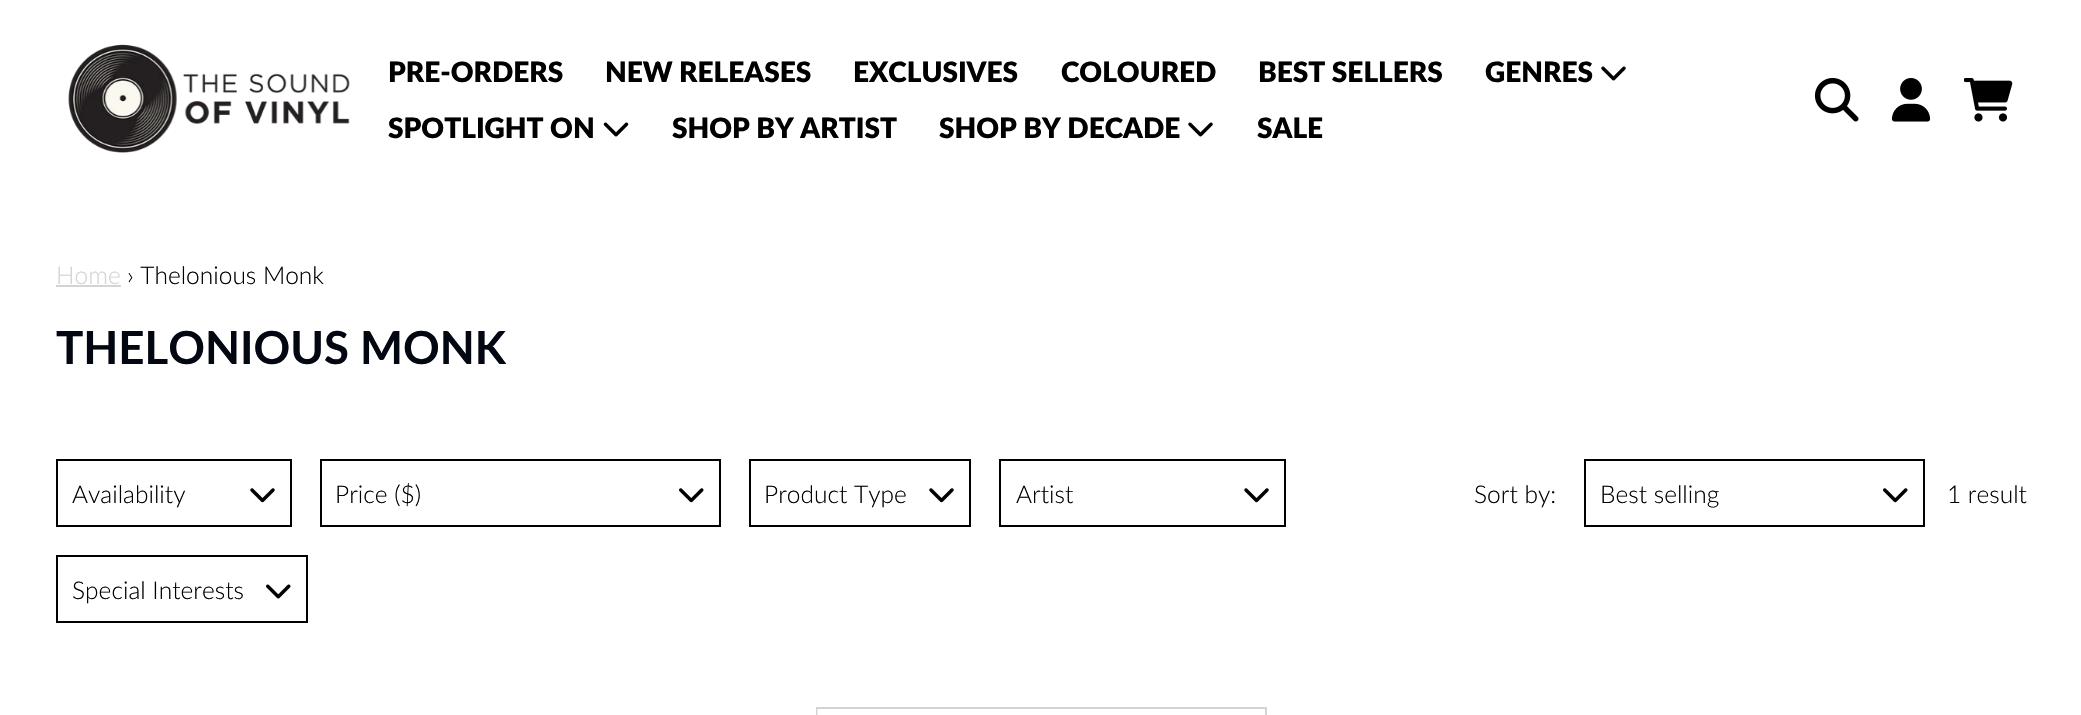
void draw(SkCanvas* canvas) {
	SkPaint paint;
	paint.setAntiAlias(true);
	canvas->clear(0xffffffff);
	canvas->drawImageRect(SkImages::DeferredFromEncodedData(SkData::MakeFromFileName("img1.png")), SkRect::MakeXYWH(68, 44, 282, 109), SkSamplingOptions());
	SkFont f1(fontMgr->matchFamilyStyle("Lato", SkFontStyle(800, SkFontStyle::kNormal_Width, SkFontStyle::kUpright_Slant)), 28);
	f1.setSubpixel(true);
	paint.setColor(0xff000000);
	canvas->drawString("PRE-ORDERS", 388, 82, f1, paint);
	canvas->drawString("NEW RELEASES", 605, 82, f1, paint);
	canvas->drawString("EXCLUSIVES", 853, 82, f1, paint);
	canvas->drawString("COLOURED", 1061, 82, f1, paint);
	canvas->drawString("BEST SELLERS", 1258, 82, f1, paint);
	canvas->drawString("GENRES", 1485, 82, f1, paint);
	canvas->drawImageRect(SkImages::DeferredFromEncodedData(SkData::MakeFromFileName("img2.png")), SkRect::MakeXYWH(1601, 66, 25, 15), SkSamplingOptions());
	canvas->drawString("SPOTLIGHT ON", 388, 138, f1, paint);
	canvas->drawImageRect(SkImages::DeferredFromEncodedData(SkData::MakeFromFileName("img3.png")), SkRect::MakeXYWH(603, 122, 26, 15), SkSamplingOptions());
	canvas->drawString("SHOP BY ARTIST", 672, 138, f1, paint);
	canvas->drawString("SHOP BY DECADE", 939, 138, f1, paint);
	canvas->drawImageRect(SkImages::DeferredFromEncodedData(SkData::MakeFromFileName("img2.png")), SkRect::MakeXYWH(1188, 122, 25, 15), SkSamplingOptions());
	canvas->drawString("SALE", 1257, 138, f1, paint);
	canvas->drawImageRect(SkImages::DeferredFromEncodedData(SkData::MakeFromFileName("img4.png")), SkRect::MakeXYWH(1814, 78, 45, 44), SkSamplingOptions());
	canvas->drawImageRect(SkImages::DeferredFromEncodedData(SkData::MakeFromFileName("img5.png")), SkRect::MakeXYWH(1891, 78, 40, 44), SkSamplingOptions());
	canvas->drawImageRect(SkImages::DeferredFromEncodedData(SkData::MakeFromFileName("img6.png")), SkRect::MakeXYWH(1964, 78, 49, 44), SkSamplingOptions());
	SkFont f2(fontMgr->matchFamilyStyle("Lato", SkFontStyle(300, SkFontStyle::kNormal_Width, SkFontStyle::kUpright_Slant)), 24.5);
	f2.setSubpixel(true);
	paint.setColor(0xffd4d4d4);
	canvas->drawString("Home", 56, 284, f2, paint);
	canvas->drawRect(SkRect::MakeXYWH(56, 285, 65, 2), paint);
	paint.setColor(0xff000000);
	canvas->drawString("› Thelonious Monk", 127, 284, f2, paint);
	SkFont f3(fontMgr->matchFamilyStyle("Lato", SkFontStyle::Bold()), 45.5);
	f3.setSubpixel(true);
	paint.setColor(0xff030711);
	canvas->drawString("THELONIOUS MONK", 56, 364, f3, paint);
	paint.setStroke(true);
	paint.setStrokeWidth(2);
	paint.setColor(0xff000000);
	canvas->drawRect(SkRect::MakeXYWH(57, 460, 234, 66), paint);
	paint.setStroke(false);
	canvas->drawString("Availability", 72, 503, f2, paint);
	canvas->drawImageRect(SkImages::DeferredFromEncodedData(SkData::MakeFromFileName("img7.png")), SkRect::MakeXYWH(250, 488, 25, 15), SkSamplingOptions());
	paint.setStroke(true);
	canvas->drawRect(SkRect::MakeXYWH(321, 460, 399, 66), paint);
	paint.setStroke(false);
	canvas->drawString("Price ($)", 335, 503, f2, paint);
	canvas->drawImageRect(SkImages::DeferredFromEncodedData(SkData::MakeFromFileName("img8.png")), SkRect::MakeXYWH(679, 488, 25, 15), SkSamplingOptions());
	paint.setStroke(true);
	canvas->drawRect(SkRect::MakeXYWH(750, 460, 220, 66), paint);
	paint.setStroke(false);
	canvas->drawString("Product Type", 764, 503, f2, paint);
	canvas->drawImageRect(SkImages::DeferredFromEncodedData(SkData::MakeFromFileName("img7.png")), SkRect::MakeXYWH(929, 488, 25, 15), SkSamplingOptions());
	paint.setStroke(true);
	canvas->drawRect(SkRect::MakeXYWH(1000, 460, 285, 66), paint);
	paint.setStroke(false);
	canvas->drawString("Artist", 1016, 503, f2, paint);
	canvas->drawImageRect(SkImages::DeferredFromEncodedData(SkData::MakeFromFileName("img7.png")), SkRect::MakeXYWH(1244, 488, 25, 15), SkSamplingOptions());
	paint.setStroke(true);
	canvas->drawRect(SkRect::MakeXYWH(57, 556, 250, 66), paint);
	paint.setStroke(false);
	canvas->drawString("Special Interests", 72, 599, f2, paint);
	canvas->drawImageRect(SkImages::DeferredFromEncodedData(SkData::MakeFromFileName("img9.png")), SkRect::MakeXYWH(266, 584, 25, 15), SkSamplingOptions());
	canvas->drawString("Sort by:", 1474, 503, f2, paint);
	paint.setStroke(true);
	canvas->drawRect(SkRect::MakeXYWH(1585, 460, 339, 66), paint);
	paint.setStroke(false);
	canvas->drawString("Best selling", 1600, 503, f2, paint);
	canvas->drawImageRect(SkImages::DeferredFromEncodedData(SkData::MakeFromFileName("img8.png")), SkRect::MakeXYWH(1883, 488, 25, 15), SkSamplingOptions());
	canvas->drawString("1 result", 1947, 503, f2, paint);
	paint.setStroke(true);
	paint.setColor(0xffd4d4d4);
	canvas->drawRect(SkRect::MakeXYWH(817, 708, 449, 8), paint);
	paint.setStroke(false);
	paint.setColor(0xffececec);
	canvas->drawRect(SkRect::MakeXYWH(817, 709, 1, 6), paint);
}
